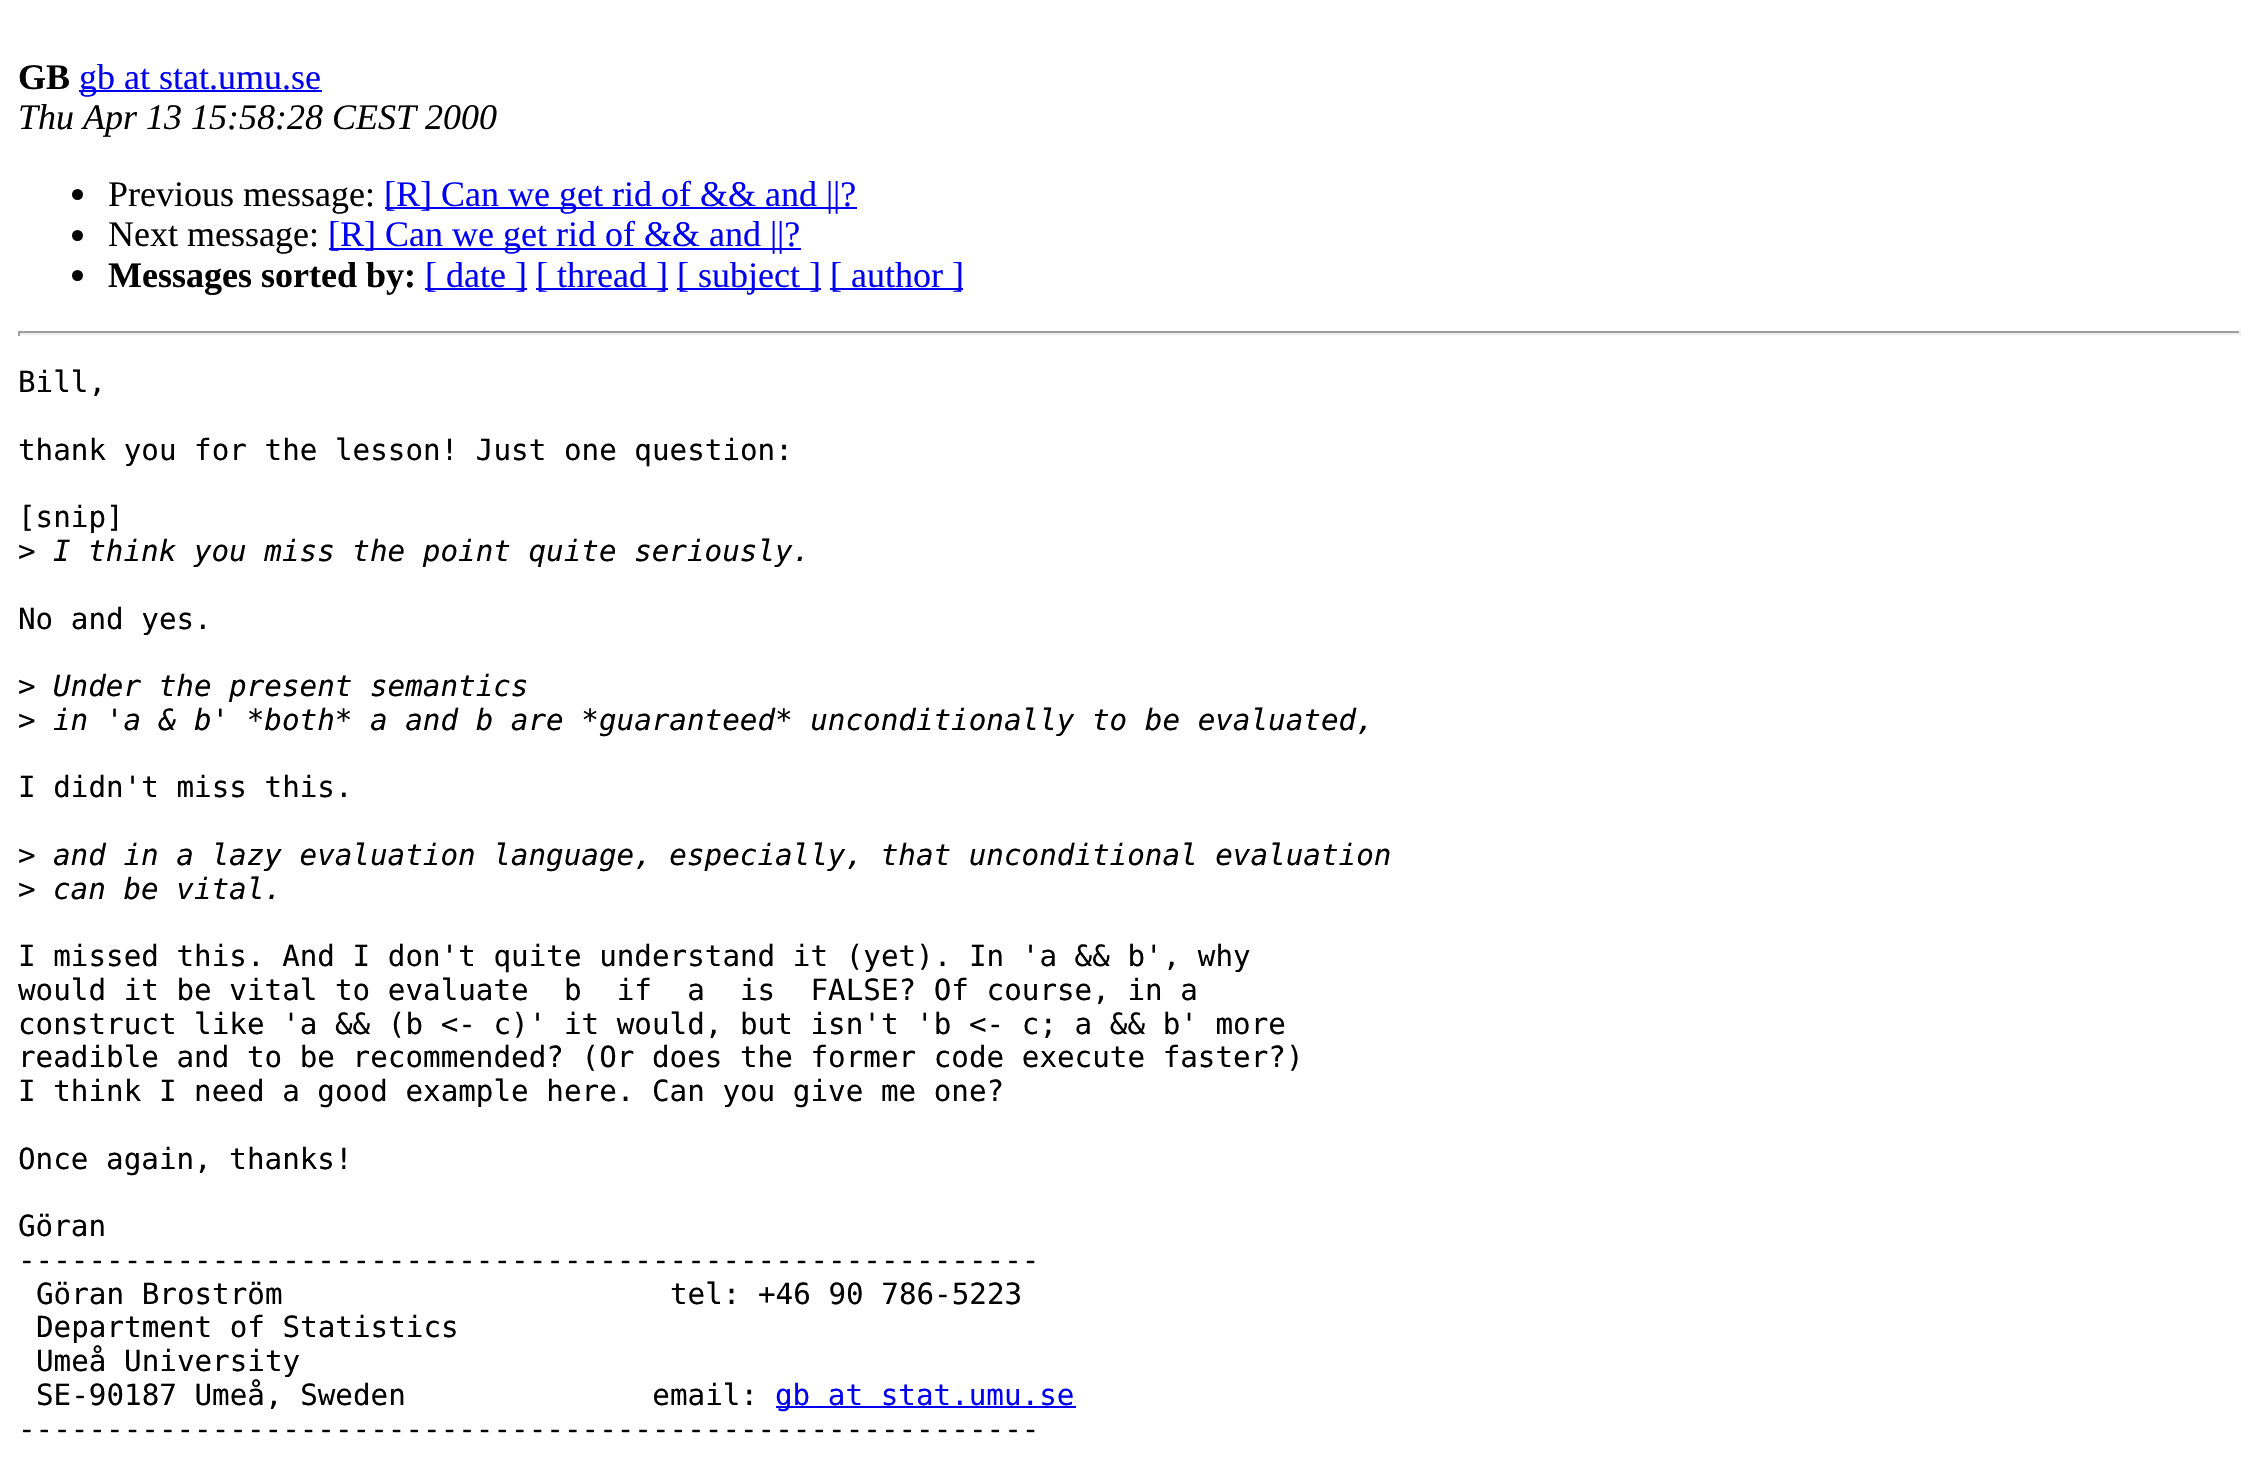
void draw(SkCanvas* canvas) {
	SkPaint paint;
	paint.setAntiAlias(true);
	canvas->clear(0xffffffff);
	SkFont f1(fontMgr->matchFamilyStyle("Liberation Serif", SkFontStyle::Bold()), 36);
	f1.setSubpixel(true);
	paint.setColor(0xff000000);
	canvas->drawString("GB", 18, 89, f1, paint);
	paint.setColor(0xff0000ee);
	canvas->drawRect(SkRect::MakeXYWH(79, 90, 243, 2), paint);
	SkFont f2(fontMgr->matchFamilyStyle("Liberation Serif", SkFontStyle::Normal()), 36);
	f2.setSubpixel(true);
	canvas->drawString("gb at stat.umu.se", 79, 89, f2, paint);
	SkFont f3(fontMgr->matchFamilyStyle("Liberation Serif", SkFontStyle::Italic()), 36);
	f3.setSubpixel(true);
	paint.setColor(0xff000000);
	canvas->drawString("Thu Apr 13 15:58:28 CEST 2000", 18, 129, f3, paint);
	canvas->drawCircle(77.5, 194.5, 5.5, paint);
	canvas->drawString("Previous message:", 108, 206, f2, paint);
	paint.setColor(0xff0000ee);
	canvas->drawRect(SkRect::MakeXYWH(385, 207, 472, 2), paint);
	canvas->drawString("[R] Can we get rid of && and ||?", 384, 206, f2, paint);
	paint.setColor(0xff000000);
	canvas->drawCircle(77.5, 235.5, 5.5, paint);
	canvas->drawString("Next message:", 108, 246, f2, paint);
	paint.setColor(0xff0000ee);
	canvas->drawRect(SkRect::MakeXYWH(329, 248, 472, 2), paint);
	canvas->drawString("[R] Can we get rid of && and ||?", 328, 246, f2, paint);
	paint.setColor(0xff000000);
	canvas->drawCircle(77.5, 275.5, 5.5, paint);
	canvas->drawString("Messages sorted by:", 108, 287, f1, paint);
	paint.setColor(0xff0000ee);
	canvas->drawRect(SkRect::MakeXYWH(425, 288, 102, 2), paint);
	canvas->drawString("[ date ]", 425, 287, f2, paint);
	canvas->drawRect(SkRect::MakeXYWH(536, 288, 132, 2), paint);
	canvas->drawString("[ thread ]", 536, 287, f2, paint);
	canvas->drawRect(SkRect::MakeXYWH(677, 288, 144, 2), paint);
	canvas->drawString("[ subject ]", 677, 287, f2, paint);
	canvas->drawRect(SkRect::MakeXYWH(830, 288, 133, 2), paint);
	canvas->drawString("[ author ]", 830, 287, f2, paint);
	paint.setColor(0xff9f9f9f);
	canvas->drawRect(SkRect::MakeXYWH(18, 331, 2223, 2), paint);
	paint.setColor(0xffeeeeee);
	canvas->drawRect(SkRect::MakeXYWH(2239, 331, 2, 5), paint);
	canvas->drawRect(SkRect::MakeXYWH(18, 333, 2223, 2), paint);
	paint.setColor(0xff9f9f9f);
	canvas->drawRect(SkRect::MakeXYWH(18, 331, 2, 5), paint);
	SkFont f4(fontMgr->matchFamilyStyle("DejaVu Sans Mono", SkFontStyle::Normal()), 29.25);
	f4.setSubpixel(true);
	paint.setColor(0xff000000);
	canvas->drawString("Bill,", 18, 392, f4, paint);
	canvas->drawString("thank you for the lesson! Just one question:", 18, 460, f4, paint);
	canvas->drawString("[snip]", 18, 527, f4, paint);
	canvas->drawString(">", 18, 561, f4, paint);
	SkFont f5(fontMgr->matchFamilyStyle("DejaVu Sans Mono", SkFontStyle::Italic()), 29.25);
	f5.setSubpixel(true);
	canvas->drawString("I think you miss the point quite seriously.", 53, 561, f5, paint);
	canvas->drawString("No and yes.", 18, 629, f4, paint);
	canvas->drawString(">", 18, 696, f4, paint);
	canvas->drawString("Under the present semantics", 53, 696, f5, paint);
	canvas->drawString(">", 18, 730, f4, paint);
	canvas->drawString("in 'a & b' *both* a and b are *guaranteed* unconditionally to be evaluated,", 53, 730, f5, paint);
	canvas->drawString("I didn't miss this.", 18, 797, f4, paint);
	canvas->drawString(">", 18, 865, f4, paint);
	canvas->drawString("and in a lazy evaluation language, especially, that unconditional evaluation", 53, 865, f5, paint);
	canvas->drawString(">", 18, 899, f4, paint);
	canvas->drawString("can be vital.", 53, 899, f5, paint);
	canvas->drawString("I missed this. And I don't quite understand it (yet). In 'a && b', why", 18, 966, f4, paint);
	canvas->drawString("would it be vital to evaluate  b  if  a  is  FALSE? Of course, in a", 18, 1000, f4, paint);
	canvas->drawString("construct like 'a && (b <- c)' it would, but isn't 'b <- c; a && b' more", 18, 1034, f4, paint);
	canvas->drawString("readible and to be recommended? (Or does the former code execute faster?)", 18, 1067, f4, paint);
	canvas->drawString("I think I need a good example here. Can you give me one?", 18, 1101, f4, paint);
	canvas->drawString("Once again, thanks!", 18, 1169, f4, paint);
	canvas->drawString("Göran", 18, 1236, f4, paint);
	canvas->drawString("----------------------------------------------------------", 18, 1270, f4, paint);
	canvas->drawString("Göran Broström                      tel: +46 90 786-5223", 36, 1304, f4, paint);
	canvas->drawString("Department of Statistics", 36, 1337, f4, paint);
	canvas->drawString("Umeå University", 36, 1371, f4, paint);
	canvas->drawString("SE-90187 Umeå, Sweden              email:", 36, 1405, f4, paint);
	paint.setColor(0xff0000ee);
	canvas->drawRect(SkRect::MakeXYWH(776, 1406, 300, 2), paint);
	canvas->drawString("gb at stat.umu.se", 775, 1405, f4, paint);
	paint.setColor(0xff000000);
	canvas->drawString("----------------------------------------------------------", 18, 1439, f4, paint);
}
